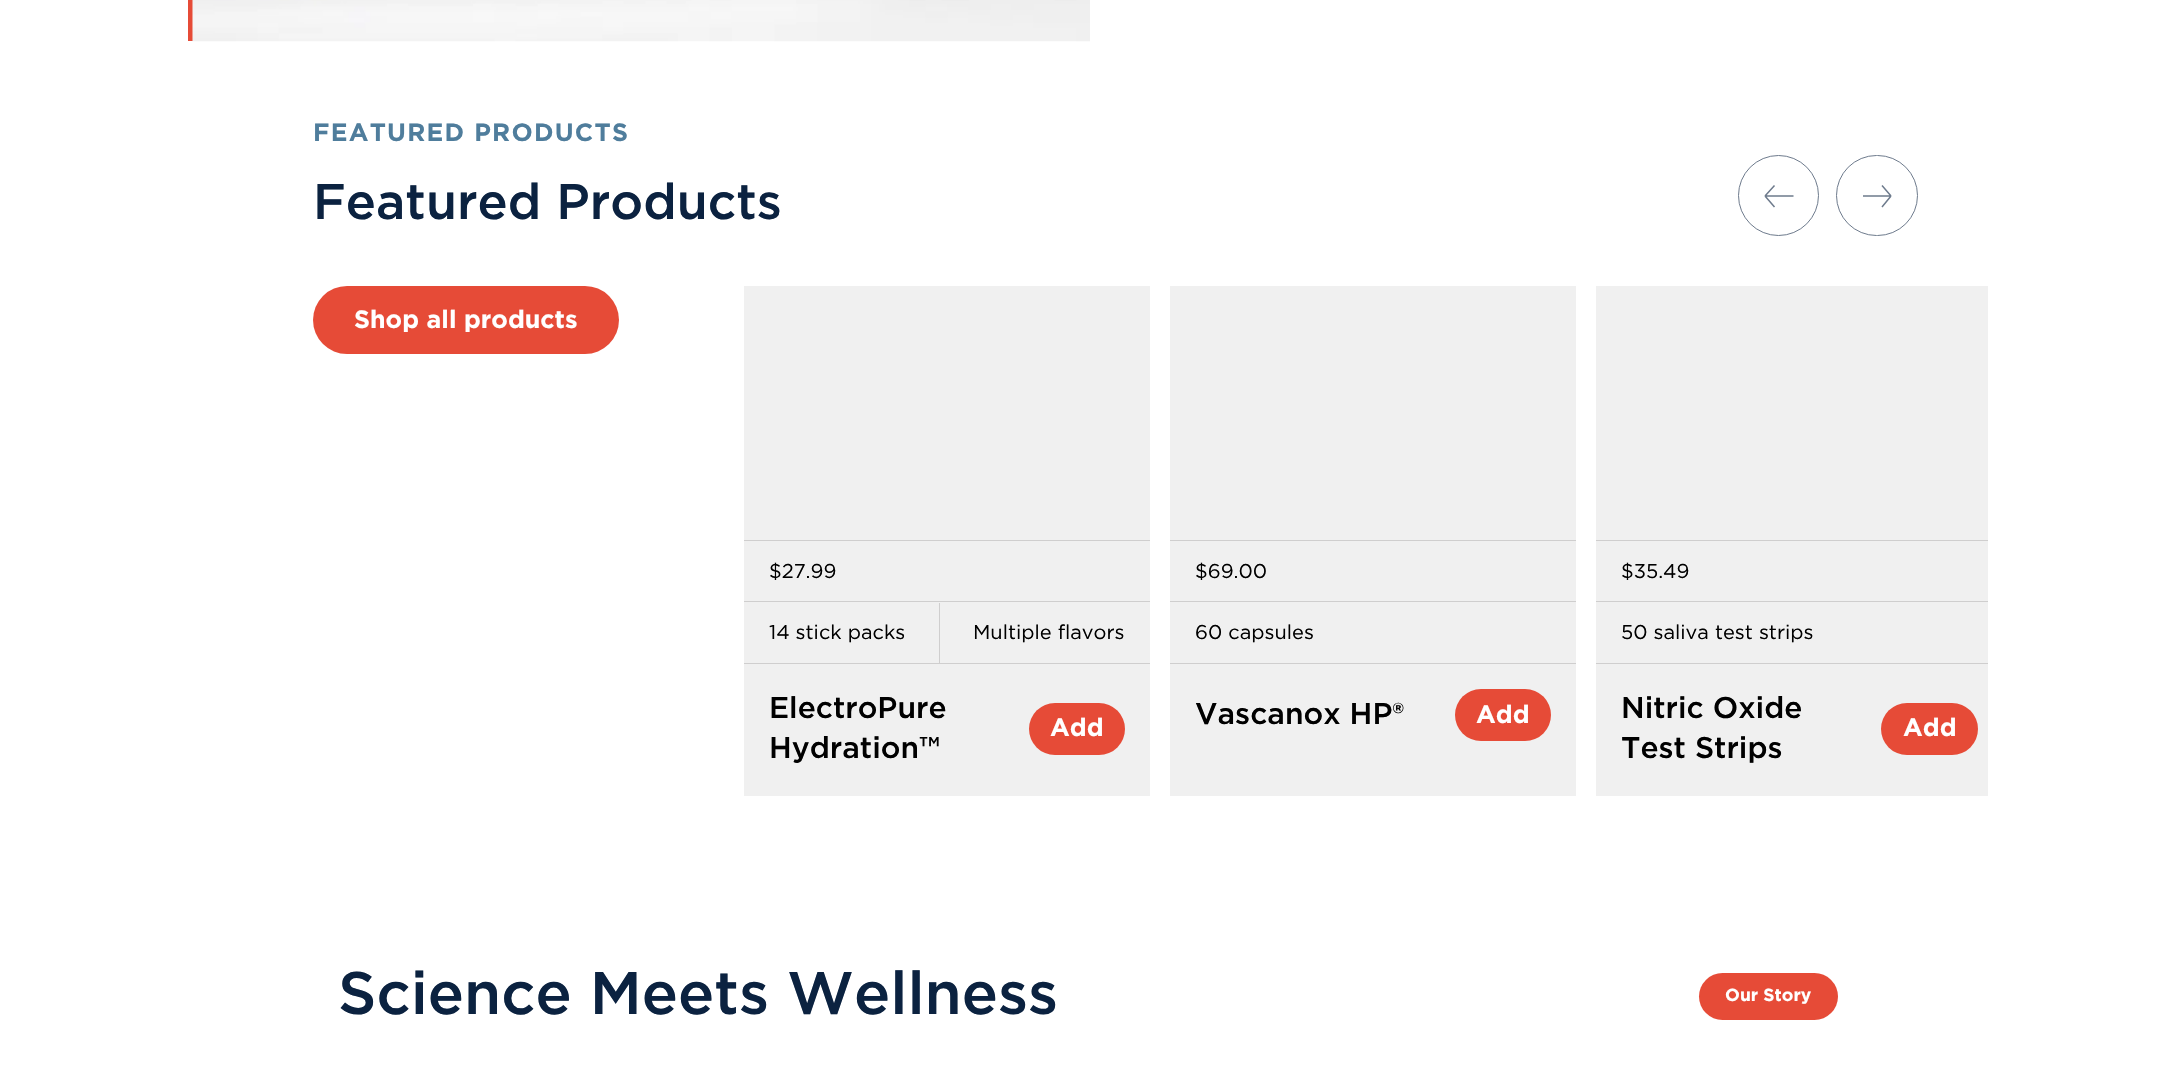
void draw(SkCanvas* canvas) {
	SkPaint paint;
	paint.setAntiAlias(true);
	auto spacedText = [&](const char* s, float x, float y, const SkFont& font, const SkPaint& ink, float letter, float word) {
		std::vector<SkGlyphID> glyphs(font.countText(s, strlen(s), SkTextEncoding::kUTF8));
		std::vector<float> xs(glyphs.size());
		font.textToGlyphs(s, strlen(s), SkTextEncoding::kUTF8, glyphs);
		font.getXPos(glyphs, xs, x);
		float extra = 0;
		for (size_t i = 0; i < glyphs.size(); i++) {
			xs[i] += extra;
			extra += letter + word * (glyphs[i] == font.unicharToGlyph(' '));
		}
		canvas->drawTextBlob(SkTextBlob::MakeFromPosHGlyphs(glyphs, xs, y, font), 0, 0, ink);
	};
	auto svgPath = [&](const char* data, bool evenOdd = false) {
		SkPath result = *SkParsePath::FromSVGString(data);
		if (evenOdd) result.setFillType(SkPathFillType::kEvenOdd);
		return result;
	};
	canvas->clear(0xffffffff);
	paint.setColor(0xffe64b37);
	canvas->drawRect(SkRect::MakeXYWH(188, 0, 5, 41), paint);
	canvas->drawImageRect(SkImages::DeferredFromEncodedData(SkData::MakeFromFileName("img1.png")), SkRect::MakeXYWH(192, 0, 898, 42), SkSamplingOptions());
	SkFont f1(fontMgr->matchFamilyStyle("Gotham", SkFontStyle::Bold()), 25);
	f1.setSubpixel(true);
	paint.setColor(0xff4f7d9c);
	spacedText("FEATURED PRODUCTS", 313, 141, f1, paint, 1.25, 0);
	SkFont f2(fontMgr->matchFamilyStyle("Gotham", SkFontStyle(500, SkFontStyle::kNormal_Width, SkFontStyle::kUpright_Slant)), 50);
	f2.setSubpixel(true);
	paint.setColor(0xff0b2240);
	canvas->drawString("Featured Products", 313, 219, f2, paint);
	paint.setStroke(true);
	paint.setStrokeWidth(1);
	paint.setColor(0xff6d7a8c);
	canvas->drawCircle(1778.5, 195.5, 40, paint);
	paint.setStrokeWidth(1.5);
	canvas->drawPath(svgPath("M1793.5 196H1765M1765 196L1774.5 207M1765 196L1774.5 185.5"), paint);
	paint.setStrokeWidth(1);
	canvas->drawRoundRect(SkRect::MakeXYWH(1836.5, 155.5, 81, 80), 40, 40, paint);
	paint.setStrokeWidth(1.5);
	canvas->drawPath(svgPath("M1863 196H1891M1891 196L1882 185.5M1891 196L1882 207"), paint);
	paint.setStroke(false);
	paint.setColor(0xffe64b37);
	canvas->drawRoundRect(SkRect::MakeXYWH(313, 286, 306, 68), 34, 34, paint);
	paint.setColor(0xffffffff);
	canvas->drawString("Shop all products", 354, 328, f1, paint);
	paint.setColor(0xfff0f0f0);
	canvas->drawRect(SkRect::MakeXYWH(744, 286, 406, 510), paint);
	paint.setColor(0xffcfcece);
	canvas->drawRect(SkRect::MakeXYWH(744, 540, 406, 1), paint);
	SkFont f3(fontMgr->matchFamilyStyle("Gotham", SkFontStyle::Normal()), 20);
	f3.setSubpixel(true);
	paint.setColor(0xff000000);
	canvas->drawString("$27.99", 769, 578, f3, paint);
	paint.setColor(0xffcfcece);
	canvas->drawRect(SkRect::MakeXYWH(744, 601, 406, 1), paint);
	paint.setColor(0xff000000);
	canvas->drawString("14 stick packs", 769, 639, f3, paint);
	paint.setColor(0xffcfcece);
	canvas->drawRect(SkRect::MakeXYWH(939, 603, 1, 60), paint);
	paint.setColor(0xff000000);
	canvas->drawString("Multiple flavors", 973, 639, f3, paint);
	paint.setColor(0xffcfcece);
	canvas->drawRect(SkRect::MakeXYWH(744, 663, 406, 1), paint);
	SkFont f4(fontMgr->matchFamilyStyle("Gotham", SkFontStyle(500, SkFontStyle::kNormal_Width, SkFontStyle::kUpright_Slant)), 30);
	f4.setSubpixel(true);
	paint.setColor(0xff000000);
	canvas->drawString("ElectroPure", 769, 718, f4, paint);
	canvas->drawString("Hydration™", 769, 758, f4, paint);
	paint.setColor(0xffe64b37);
	canvas->drawRoundRect(SkRect::MakeXYWH(1029, 703, 96, 52), 26, 26, paint);
	paint.setColor(0xffffffff);
	canvas->drawString("Add", 1050, 736, f1, paint);
	paint.setColor(0xfff0f0f0);
	canvas->drawRect(SkRect::MakeXYWH(1170, 286, 406, 510), paint);
	paint.setColor(0xffcfcece);
	canvas->drawRect(SkRect::MakeXYWH(1170, 540, 406, 1), paint);
	paint.setColor(0xff000000);
	canvas->drawString("$69.00", 1195, 578, f3, paint);
	paint.setColor(0xffcfcece);
	canvas->drawRect(SkRect::MakeXYWH(1170, 601, 406, 1), paint);
	paint.setColor(0xff000000);
	canvas->drawString("60 capsules", 1195, 639, f3, paint);
	paint.setColor(0xffcfcece);
	canvas->drawRect(SkRect::MakeXYWH(1170, 663, 406, 1), paint);
	paint.setColor(0xff000000);
	canvas->drawString("Vascanox HP®", 1195, 724, f4, paint);
	paint.setColor(0xffe64b37);
	canvas->drawRoundRect(SkRect::MakeXYWH(1455, 689, 96, 52), 26, 26, paint);
	paint.setColor(0xffffffff);
	canvas->drawString("Add", 1476, 723, f1, paint);
	paint.setColor(0xfff0f0f0);
	canvas->drawRect(SkRect::MakeXYWH(1596, 286, 392, 510), paint);
	paint.setColor(0xffcfcece);
	canvas->drawRect(SkRect::MakeXYWH(1596, 540, 392, 1), paint);
	paint.setColor(0xff000000);
	canvas->drawString("$35.49", 1621, 578, f3, paint);
	paint.setColor(0xffcfcece);
	canvas->drawRect(SkRect::MakeXYWH(1596, 601, 392, 1), paint);
	paint.setColor(0xff000000);
	canvas->drawString("50 saliva test strips", 1621, 639, f3, paint);
	paint.setColor(0xffcfcece);
	canvas->drawRect(SkRect::MakeXYWH(1596, 663, 392, 1), paint);
	paint.setColor(0xff000000);
	canvas->drawString("Nitric Oxide", 1621, 718, f4, paint);
	canvas->drawString("Test Strips", 1621, 758, f4, paint);
	paint.setColor(0xffe64b37);
	canvas->drawRoundRect(SkRect::MakeXYWH(1881, 703, 97, 52), 26, 26, paint);
	paint.setColor(0xffffffff);
	canvas->drawString("Add", 1903, 736, f1, paint);
	SkFont f5(fontMgr->matchFamilyStyle("Gotham", SkFontStyle(500, SkFontStyle::kNormal_Width, SkFontStyle::kUpright_Slant)), 60);
	f5.setSubpixel(true);
	paint.setColor(0xff0b2240);
	canvas->drawString("Science Meets Wellness", 338, 1014, f5, paint);
	paint.setColor(0xffe64b37);
	canvas->drawRoundRect(SkRect::MakeXYWH(1699, 973, 139, 47), 23.5, 23.5, paint);
	SkFont f6(fontMgr->matchFamilyStyle("Gotham", SkFontStyle::Bold()), 17.5);
	f6.setSubpixel(true);
	paint.setColor(0xffffffff);
	canvas->drawString("Our Story", 1725, 1001, f6, paint);
}
